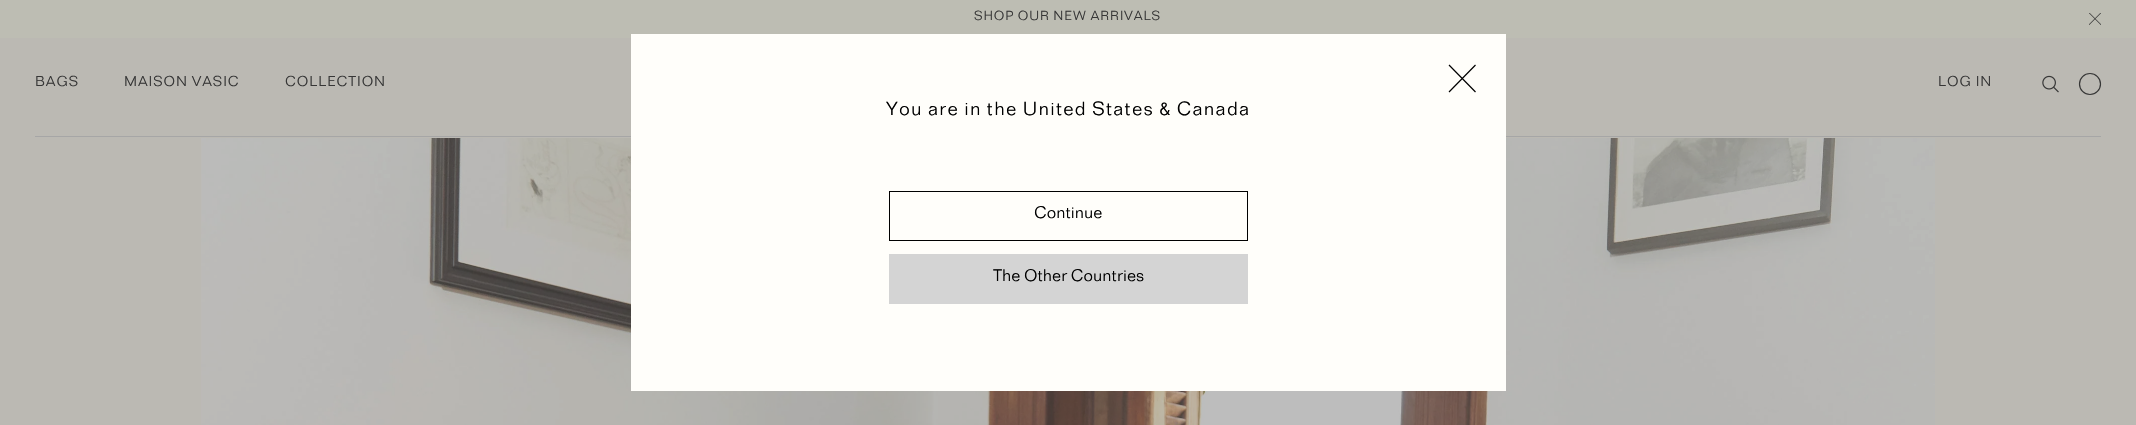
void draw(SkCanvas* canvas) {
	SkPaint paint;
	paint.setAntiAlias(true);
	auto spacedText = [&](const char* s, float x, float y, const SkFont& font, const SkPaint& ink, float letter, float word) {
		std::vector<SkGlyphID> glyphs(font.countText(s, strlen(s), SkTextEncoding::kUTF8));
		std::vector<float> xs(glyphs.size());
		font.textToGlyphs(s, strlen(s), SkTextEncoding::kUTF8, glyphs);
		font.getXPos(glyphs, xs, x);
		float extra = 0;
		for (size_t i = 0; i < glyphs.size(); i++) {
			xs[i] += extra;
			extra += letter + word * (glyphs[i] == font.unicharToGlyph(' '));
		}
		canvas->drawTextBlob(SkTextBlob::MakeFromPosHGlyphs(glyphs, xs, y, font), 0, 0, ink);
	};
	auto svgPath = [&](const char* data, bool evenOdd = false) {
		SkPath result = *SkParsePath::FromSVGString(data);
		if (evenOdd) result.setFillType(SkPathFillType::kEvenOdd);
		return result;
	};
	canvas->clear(0xffbbb9b3);
	paint.setColor(0xffbdbdb3);
	canvas->drawRect(SkRect::MakeXYWH(0, 0, 2136, 38), paint);
	SkFont f1(fontMgr->matchFamilyStyle("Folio", SkFontStyle(300, SkFontStyle::kNormal_Width, SkFontStyle::kUpright_Slant)), 13.75);
	f1.setSubpixel(true);
	paint.setColor(0xff363636);
	spacedText("SHOP OUR NEW ARRIVALS", 974, 20, f1, paint, 0.8, 0);
	canvas->drawImageRect(SkImages::DeferredFromEncodedData(SkData::MakeFromFileName("img1.png")), SkRect::MakeXYWH(2089, 13, 12, 12), SkSamplingOptions());
	paint.setColor(0xffa6a6a6);
	canvas->drawRect(SkRect::MakeXYWH(35, 136, 2066, 1), paint);
	SkFont f2(fontMgr->matchFamilyStyle("Folio", SkFontStyle(300, SkFontStyle::kNormal_Width, SkFontStyle::kUpright_Slant)), 15);
	f2.setSubpixel(true);
	paint.setColor(0xff363636);
	spacedText("BAGS", 35, 86, f2, paint, 0.9, 0);
	spacedText("MAISON VASIC", 124, 86, f2, paint, 0.9, 0);
	spacedText("COLLECTION", 285, 86, f2, paint, 0.9, 0);
	spacedText("LOG IN", 1938, 86, f2, paint, 0.9, 0);
	canvas->drawImageRect(SkImages::DeferredFromEncodedData(SkData::MakeFromFileName("img2.png")), SkRect::MakeXYWH(2042, 75, 17, 18), SkSamplingOptions());
	paint.setStroke(true);
	paint.setStrokeWidth(1.2);
	canvas->drawCircle(2090, 84, 10.5, paint);
	canvas->drawImageRect(SkImages::DeferredFromEncodedData(SkData::MakeFromFileName("img3.png")), SkRect::MakeXYWH(201, 138, 1734, 287), SkSamplingOptions());
	paint.setStroke(false);
	paint.setColor(0xfffffefa);
	canvas->drawRect(SkRect::MakeXYWH(631, 34, 875, 357), paint);
	paint.setStroke(true);
	paint.setColor(0xff000000);
	canvas->drawPath(svgPath("M1449 65L1475.5 92M1475.5 65L1449 92"), paint);
	SkFont f3(fontMgr->matchFamilyStyle("Folio", SkFontStyle(300, SkFontStyle::kNormal_Width, SkFontStyle::kUpright_Slant)), 20);
	f3.setSubpixel(true);
	paint.setStroke(false);
	spacedText("You are in the United States & Canada", 886, 115, f3, paint, 1.2, 0);
	paint.setStroke(true);
	paint.setStrokeWidth(1);
	canvas->drawRect(SkRect::MakeXYWH(889.5, 191.5, 358, 49), paint);
	SkFont f4(fontMgr->matchFamilyStyle("Folio", SkFontStyle(300, SkFontStyle::kNormal_Width, SkFontStyle::kUpright_Slant)), 17.5);
	f4.setSubpixel(true);
	paint.setStroke(false);
	canvas->drawString("Continue", 1034, 218, f4, paint);
	paint.setColor(0xffd4d4d4);
	canvas->drawRect(SkRect::MakeXYWH(889, 254, 359, 50), paint);
	paint.setColor(0xff000000);
	canvas->drawString("The Other Countries", 993, 281, f4, paint);
}
